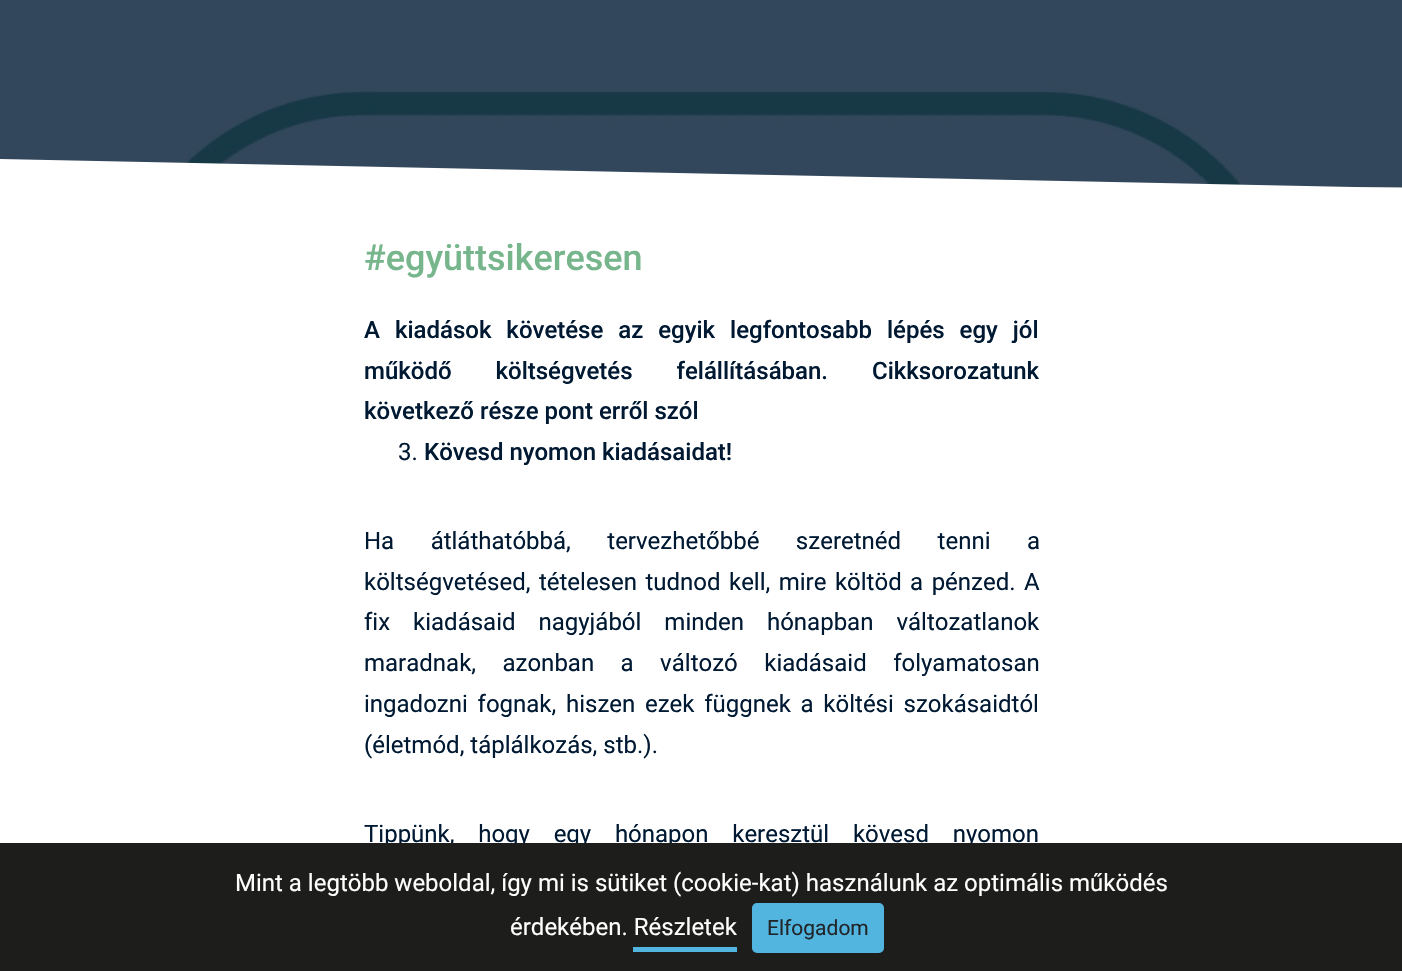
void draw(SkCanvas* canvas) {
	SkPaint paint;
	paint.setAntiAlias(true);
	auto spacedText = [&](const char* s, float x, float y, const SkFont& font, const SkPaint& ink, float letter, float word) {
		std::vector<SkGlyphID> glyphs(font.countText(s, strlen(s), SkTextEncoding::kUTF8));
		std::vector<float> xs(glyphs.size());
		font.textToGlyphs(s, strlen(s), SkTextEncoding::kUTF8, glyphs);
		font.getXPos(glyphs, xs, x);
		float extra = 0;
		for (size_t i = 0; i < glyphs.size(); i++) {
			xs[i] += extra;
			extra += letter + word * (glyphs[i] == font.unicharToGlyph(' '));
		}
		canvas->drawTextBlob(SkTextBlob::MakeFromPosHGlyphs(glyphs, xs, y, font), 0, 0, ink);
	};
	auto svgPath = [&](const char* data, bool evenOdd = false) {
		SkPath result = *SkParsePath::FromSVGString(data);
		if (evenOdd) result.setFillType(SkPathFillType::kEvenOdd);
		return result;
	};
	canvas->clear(0xffffffff);
	paint.setColor(0xffa5abaf);
	canvas->drawRect(SkRect::MakeXYWH(1356, 187, 46, 1), paint);
	canvas->drawImageRect(SkImages::DeferredFromEncodedData(SkData::MakeFromFileName("img1.png")), SkRect::MakeXYWH(0, 0, 1402, 187), SkSamplingOptions());
	paint.setColor(0xffffffff);
	canvas->drawPath(svgPath("M0 159L1402 188H0Z"), paint);
	SkFont f1(fontMgr->matchFamilyStyle("Roboto", SkFontStyle(500, SkFontStyle::kNormal_Width, SkFontStyle::kUpright_Slant)), 36);
	f1.setSubpixel(true);
	paint.setColor(0xff77b68c);
	canvas->drawString("#együttsikeresen", 364, 270, f1, paint);
	SkFont f2(fontMgr->matchFamilyStyle("Roboto", SkFontStyle(500, SkFontStyle::kNormal_Width, SkFontStyle::kUpright_Slant)), 24);
	f2.setSubpixel(true);
	paint.setColor(0xff001933);
	spacedText("A kiadások követése az egyik legfontosabb lépés egy jól", 364, 338, f2, paint, 0, 9);
	spacedText("működő költségvetés felállításában. Cikksorozatunk", 364, 379, f2, paint, 0, 38);
	canvas->drawString("következő része pont erről szól", 364, 419, f2, paint);
	SkFont f3(fontMgr->matchFamilyStyle("Roboto", SkFontStyle::Normal()), 24);
	f3.setSubpixel(true);
	canvas->drawString("3.", 398, 460, f3, paint);
	canvas->drawString("Kövesd nyomon kiadásaidat!", 424, 460, f2, paint);
	spacedText("Ha átláthatóbbá, tervezhetőbbé szeretnéd tenni a", 364, 549, f3, paint, 0, 30.5);
	spacedText("költségvetésed, tételesen tudnod kell, mire költöd a pénzed. A", 364, 590, f3, paint, 0, 2.5);
	spacedText("fix kiadásaid nagyjából minden hónapban változatlanok", 364, 630, f3, paint, 0, 17);
	spacedText("maradnak, azonban a változó kiadásaid folyamatosan", 364, 671, f3, paint, 0, 20.5);
	spacedText("ingadozni fognak, hiszen ezek függnek a költési szokásaidtól", 364, 712, f3, paint, 0, 3.75);
	canvas->drawString("(életmód, táplálkozás, stb.).", 364, 753, f3, paint);
	spacedText("Tippünk, hogy egy hónapon keresztül kövesd nyomon", 364, 842, f3, paint, 0, 17.75);
	paint.setColor(0xff1d1d1b);
	canvas->drawRect(SkRect::MakeXYWH(0, 843, 1402, 128), paint);
	paint.setColor(0xffffffff);
	canvas->drawString("Mint a legtöbb weboldal, így mi is sütiket (cookie-kat) használunk az optimális működés", 235, 891, f3, paint);
	canvas->drawString("érdekében. Részletek", 510, 935, f3, paint);
	paint.setColor(0xff52b5e0);
	canvas->drawRect(SkRect::MakeXYWH(633, 947, 104, 5), paint);
	canvas->drawRoundRect(SkRect::MakeXYWH(753.5, 904.5, 129, 47), 3.5, 3.5, paint);
	paint.setStroke(true);
	paint.setStrokeWidth(3);
	canvas->drawRoundRect(SkRect::MakeXYWH(753.5, 904.5, 129, 47), 3.5, 3.5, paint);
	SkFont f4(fontMgr->matchFamilyStyle("Roboto", SkFontStyle::Normal()), 21);
	f4.setSubpixel(true);
	paint.setStroke(false);
	paint.setColor(0xff212529);
	canvas->drawString("Elfogadom", 767, 935, f4, paint);
}
